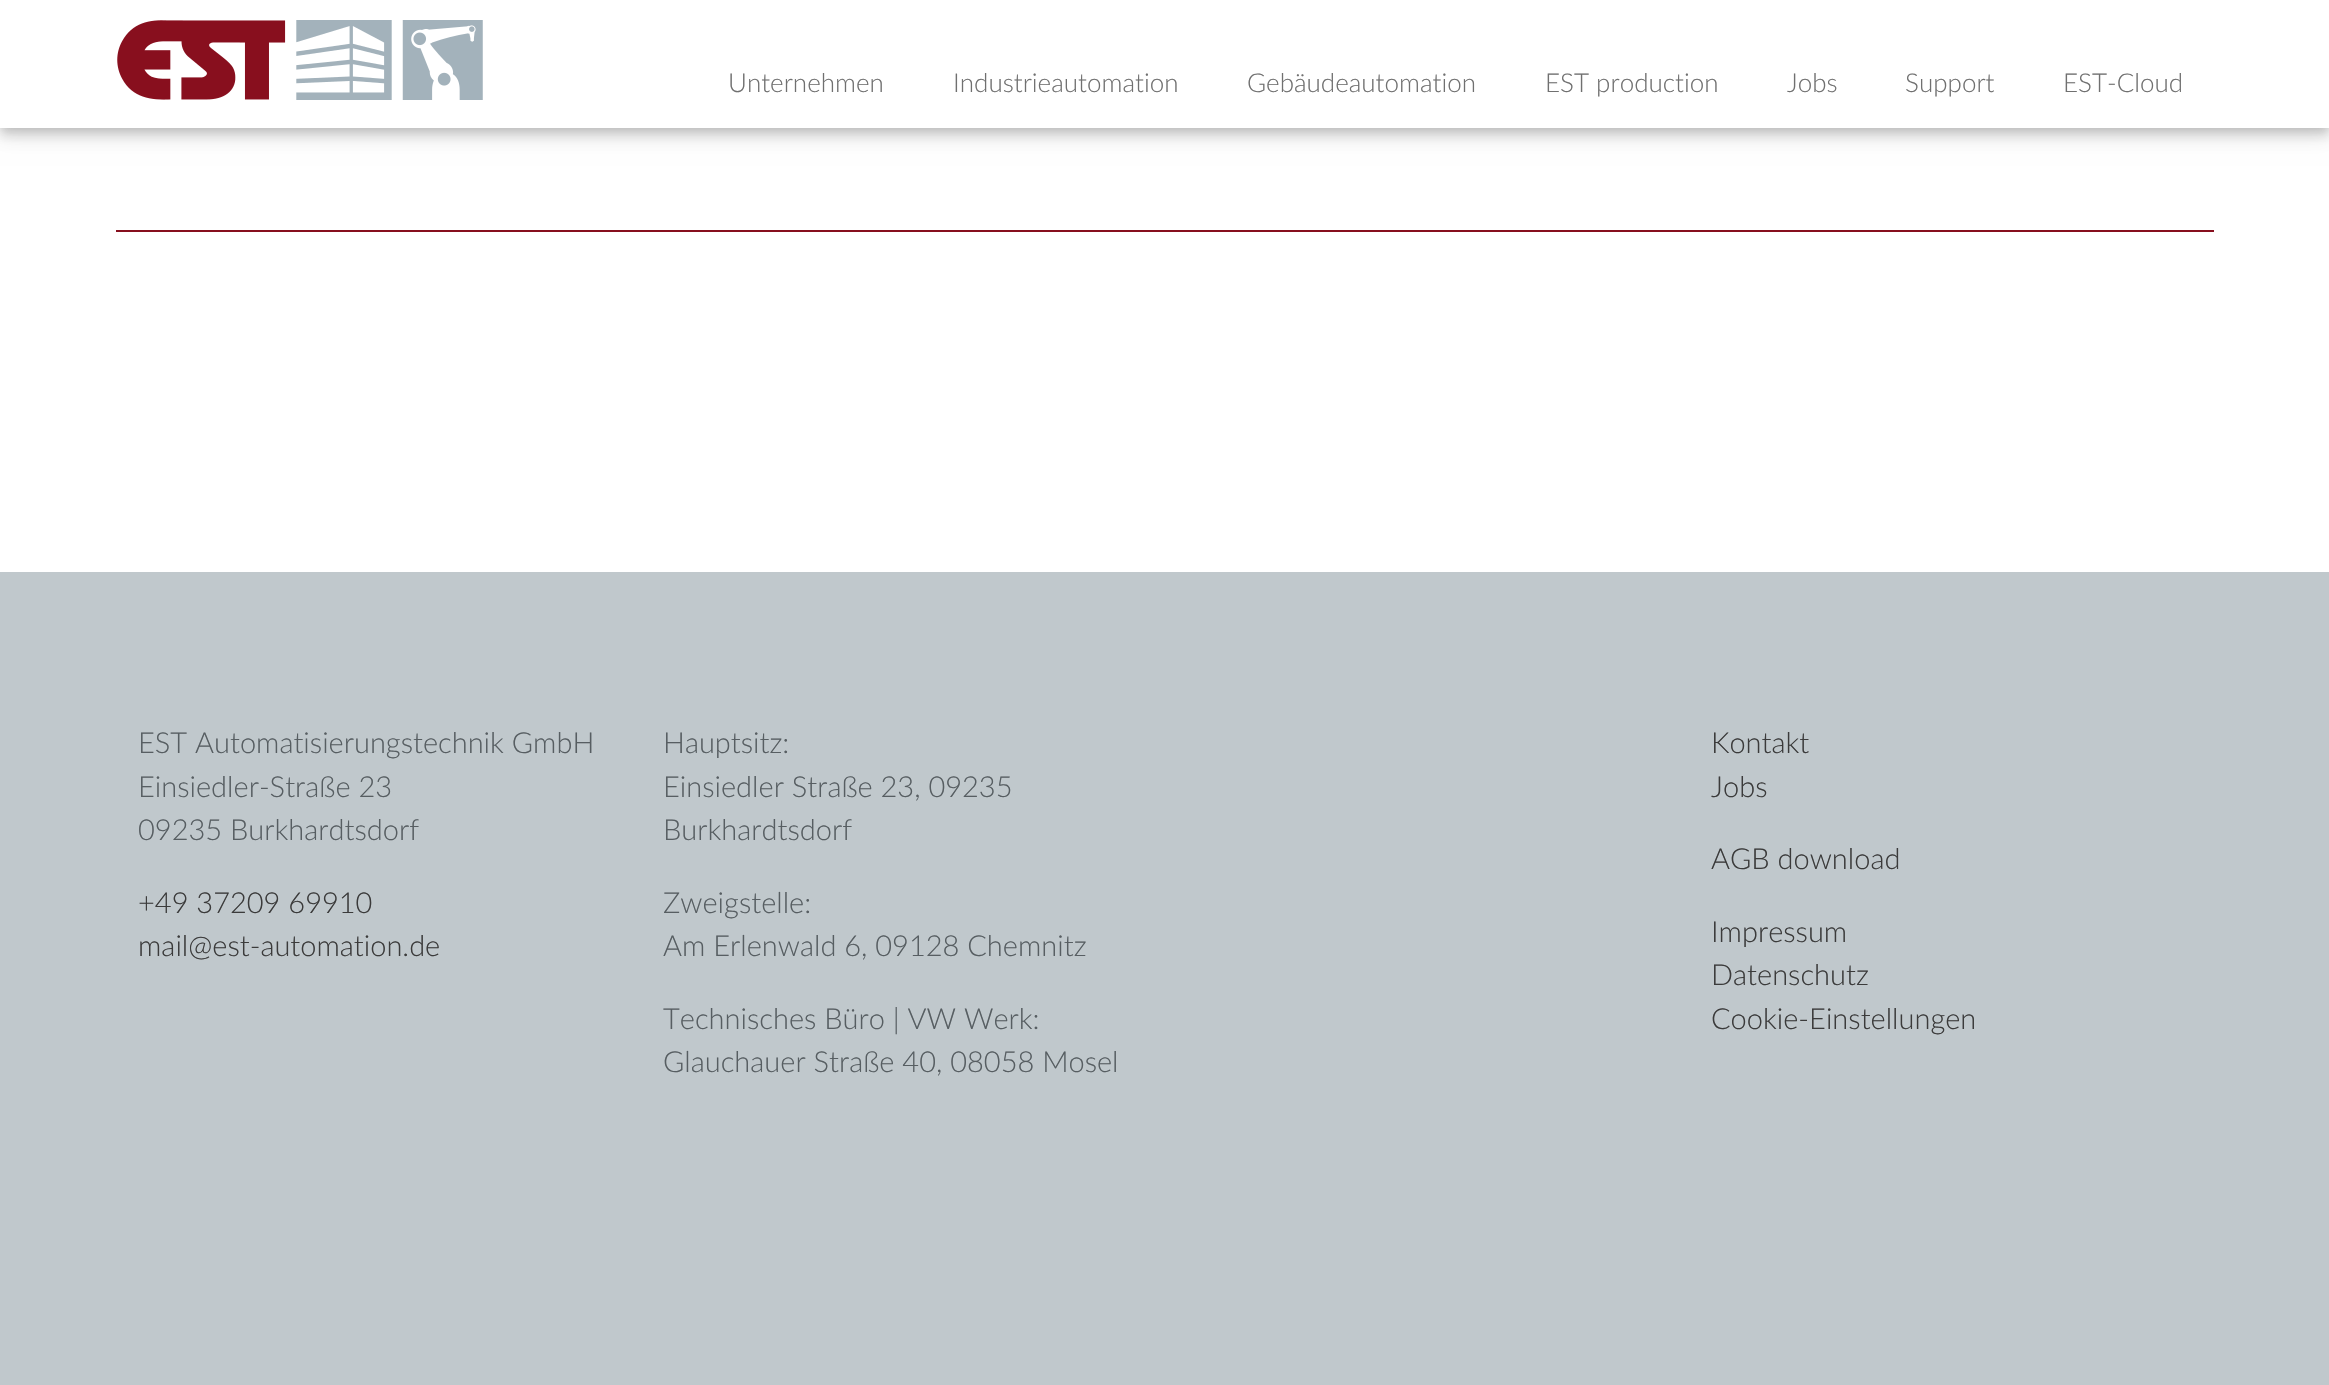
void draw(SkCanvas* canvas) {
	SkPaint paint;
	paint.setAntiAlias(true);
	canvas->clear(0xffffffff);
	paint.setColor(0x1a000000);
	paint.setMaskFilter(SkMaskFilter::MakeBlur(kNormal_SkBlurStyle, 4));
	canvas->drawRect(SkRect::MakeXYWH(2, 6, 2326, 124), paint);
	paint.setMaskFilter(nullptr);
	paint.setMaskFilter(SkMaskFilter::MakeBlur(kNormal_SkBlurStyle, 10));
	canvas->drawRect(SkRect::MakeXYWH(0, 8, 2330, 128), paint);
	paint.setMaskFilter(nullptr);
	paint.setMaskFilter(SkMaskFilter::MakeBlur(kNormal_SkBlurStyle, 5));
	canvas->drawRect(SkRect::MakeXYWH(0, 8, 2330, 128), paint);
	paint.setMaskFilter(nullptr);
	paint.setColor(0xffffffff);
	canvas->drawRect(SkRect::MakeXYWH(0, 0, 2329, 128), paint);
	canvas->drawImageRect(SkImages::DeferredFromEncodedData(SkData::MakeFromFileName("img1.png")), SkRect::MakeXYWH(117, 20, 366, 80), SkSamplingOptions());
	SkFont f1(fontMgr->matchFamilyStyle("Lato", SkFontStyle(300, SkFontStyle::kNormal_Width, SkFontStyle::kUpright_Slant)), 26);
	f1.setSubpixel(true);
	paint.setColor(0xff707070);
	canvas->drawString("Unternehmen", 728, 92, f1, paint);
	canvas->drawString("Industrieautomation", 953, 92, f1, paint);
	canvas->drawString("Gebäudeautomation", 1247, 92, f1, paint);
	canvas->drawString("EST production", 1545, 92, f1, paint);
	canvas->drawString("Jobs", 1787, 92, f1, paint);
	canvas->drawString("Support", 1905, 92, f1, paint);
	canvas->drawString("EST-Cloud", 2063, 92, f1, paint);
	paint.setColor(0xff870f1e);
	canvas->drawRect(SkRect::MakeXYWH(116, 230, 2098, 2), paint);
	paint.setColor(0xffc0c8cc);
	canvas->drawRect(SkRect::MakeXYWH(0, 572, 2329, 813), paint);
	SkFont f2(fontMgr->matchFamilyStyle("Lato", SkFontStyle(300, SkFontStyle::kNormal_Width, SkFontStyle::kUpright_Slant)), 29);
	f2.setSubpixel(true);
	paint.setColor(0xff575e62);
	canvas->drawString("EST Automatisierungstechnik GmbH", 138, 753, f2, paint);
	canvas->drawString("Einsiedler-Straße 23", 138, 797, f2, paint);
	canvas->drawString("09235 Burkhardtsdorf", 138, 840, f2, paint);
	paint.setColor(0xff3b3b3b);
	canvas->drawString("+49 37209 69910", 138, 913, f2, paint);
	canvas->drawString("mail@est-automation.de", 138, 956, f2, paint);
	paint.setColor(0xff575e62);
	canvas->drawString("Hauptsitz:", 663, 753, f2, paint);
	canvas->drawString("Einsiedler Straße 23, 09235", 663, 797, f2, paint);
	canvas->drawString("Burkhardtsdorf", 663, 840, f2, paint);
	canvas->drawString("Zweigstelle:", 663, 913, f2, paint);
	canvas->drawString("Am Erlenwald 6, 09128 Chemnitz", 663, 956, f2, paint);
	canvas->drawString("Technisches Büro | VW Werk:", 663, 1029, f2, paint);
	canvas->drawString("Glauchauer Straße 40, 08058 Mosel", 663, 1072, f2, paint);
	paint.setColor(0xff3b3b3b);
	canvas->drawString("Kontakt", 1711, 753, f2, paint);
	canvas->drawString("Jobs", 1711, 797, f2, paint);
	canvas->drawString("AGB download", 1711, 869, f2, paint);
	canvas->drawString("Impressum", 1711, 942, f2, paint);
	canvas->drawString("Datenschutz", 1711, 985, f2, paint);
	canvas->drawString("Cookie-Einstellungen", 1711, 1029, f2, paint);
}
